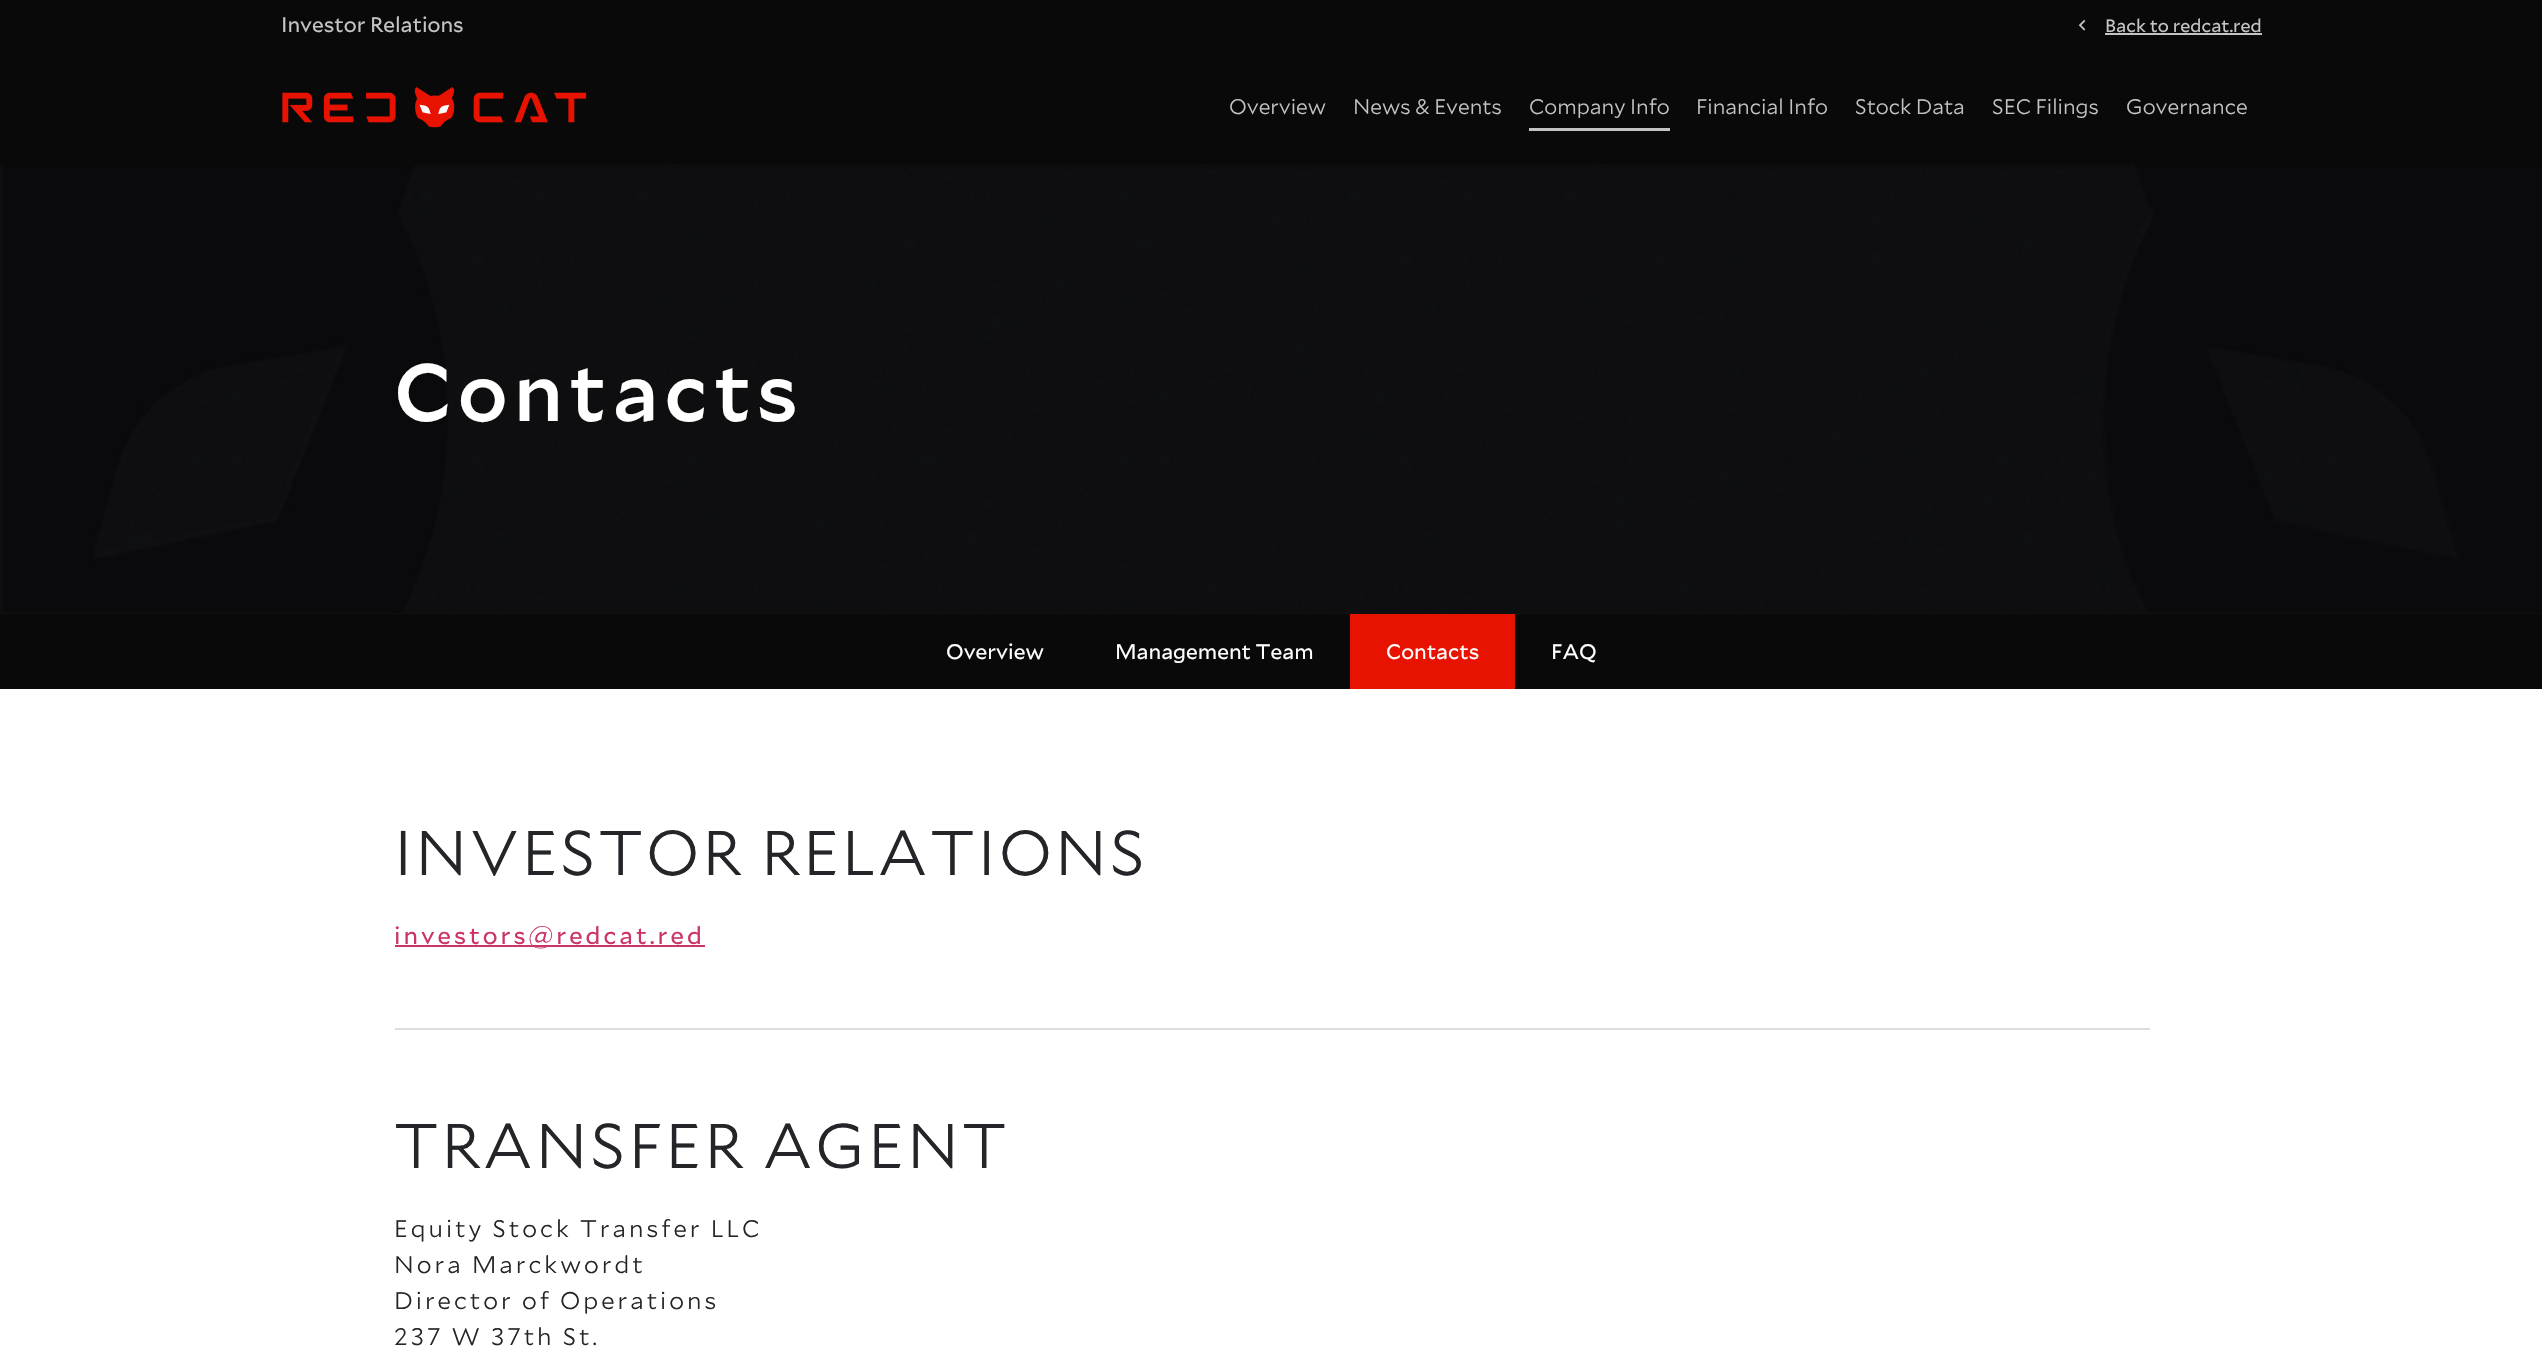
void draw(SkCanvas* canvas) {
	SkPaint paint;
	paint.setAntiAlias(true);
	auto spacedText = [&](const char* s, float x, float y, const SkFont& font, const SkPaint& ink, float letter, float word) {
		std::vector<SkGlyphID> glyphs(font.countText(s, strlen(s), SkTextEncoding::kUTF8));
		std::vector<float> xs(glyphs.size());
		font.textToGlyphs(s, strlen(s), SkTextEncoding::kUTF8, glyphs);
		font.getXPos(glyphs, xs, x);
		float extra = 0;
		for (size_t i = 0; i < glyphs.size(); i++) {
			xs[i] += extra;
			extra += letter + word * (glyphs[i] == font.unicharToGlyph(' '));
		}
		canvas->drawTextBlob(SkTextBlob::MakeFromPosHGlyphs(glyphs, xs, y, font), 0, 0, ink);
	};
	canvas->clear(0xffffffff);
	paint.setColor(0xff141414);
	canvas->drawRect(SkRect::MakeXYWH(0, 613, 2542, 1), paint);
	canvas->drawImageRect(SkImages::DeferredFromEncodedData(SkData::MakeFromFileName("img3.png")), SkRect::MakeXYWH(0, 164, 2542, 450), SkSamplingOptions());
	paint.setColor(0x4d000000);
	paint.setMaskFilter(SkMaskFilter::MakeBlur(kNormal_SkBlurStyle, 4));
	canvas->drawRect(SkRect::MakeXYWH(0, 0, 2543, 164), paint);
	paint.setMaskFilter(nullptr);
	paint.setColor(0xff090909);
	canvas->drawRect(SkRect::MakeXYWH(0, 0, 2542, 164), paint);
	SkFont f1(fontMgr->matchFamilyStyle("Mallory", SkFontStyle::Normal()), 21);
	f1.setSubpixel(true);
	paint.setColor(0xffc4c4c4);
	canvas->drawString("Investor Relations", 281, 32, f1, paint);
	canvas->drawImageRect(SkImages::DeferredFromEncodedData(SkData::MakeFromFileName("img1.png")), SkRect::MakeXYWH(2078, 19, 8, 12), SkSamplingOptions());
	SkFont f2(fontMgr->matchFamilyStyle("Mallory", SkFontStyle::Normal()), 18);
	f2.setSubpixel(true);
	canvas->drawString("Back to redcat.red", 2105, 32, f2, paint);
	canvas->drawRect(SkRect::MakeXYWH(2105, 33, 157, 2), paint);
	canvas->drawImageRect(SkImages::DeferredFromEncodedData(SkData::MakeFromFileName("img2.png")), SkRect::MakeXYWH(282, 87, 305, 41), SkSamplingOptions());
	SkFont f3(fontMgr->matchFamilyStyle("Mallory", SkFontStyle(300, SkFontStyle::kNormal_Width, SkFontStyle::kUpright_Slant)), 21);
	f3.setSubpixel(true);
	canvas->drawString("Overview", 1229, 114, f3, paint);
	canvas->drawString("News & Events", 1353, 114, f3, paint);
	canvas->drawString("Company Info", 1529, 114, f3, paint);
	canvas->drawRect(SkRect::MakeXYWH(1529, 128, 141, 3), paint);
	canvas->drawString("Financial Info", 1696, 114, f3, paint);
	canvas->drawString("Stock Data", 1855, 114, f3, paint);
	canvas->drawString("SEC Filings", 1992, 114, f3, paint);
	canvas->drawString("Governance", 2126, 114, f3, paint);
	SkFont f4(fontMgr->matchFamilyStyle("Mallory", SkFontStyle(500, SkFontStyle::kNormal_Width, SkFontStyle::kUpright_Slant)), 81);
	f4.setSubpixel(true);
	paint.setColor(0xffffffff);
	spacedText("Contacts", 394, 421, f4, paint, 6, 0);
	paint.setColor(0xff090909);
	canvas->drawRect(SkRect::MakeXYWH(0, 614, 2542, 75), paint);
	paint.setColor(0xffffffff);
	canvas->drawString("Overview", 946, 659, f1, paint);
	canvas->drawString("Management Team", 1115, 659, f1, paint);
	paint.setColor(0xffe71200);
	canvas->drawRect(SkRect::MakeXYWH(1350, 614, 165, 75), paint);
	paint.setColor(0xffffffff);
	canvas->drawString("Contacts", 1386, 659, f1, paint);
	canvas->drawString("FAQ", 1551, 659, f1, paint);
	SkFont f5(fontMgr->matchFamilyStyle("Mallory", SkFontStyle(300, SkFontStyle::kNormal_Width, SkFontStyle::kUpright_Slant)), 63);
	f5.setSubpixel(true);
	paint.setColor(0xff232528);
	spacedText("INVESTOR RELATIONS", 394, 875, f5, paint, 3, 0);
	paint.setColor(0xffcc3366);
	canvas->drawRect(SkRect::MakeXYWH(395, 945, 310, 2), paint);
	SkFont f6(fontMgr->matchFamilyStyle("Mallory", SkFontStyle::Normal()), 24);
	f6.setSubpixel(true);
	spacedText("investors@redcat.red", 394, 944, f6, paint, 3, 0);
	paint.setColor(0xffdcdcdc);
	canvas->drawRect(SkRect::MakeXYWH(395, 1028, 1755, 2), paint);
	paint.setColor(0xff232528);
	spacedText("TRANSFER AGENT", 394, 1168, f5, paint, 3, 0);
	SkFont f7(fontMgr->matchFamilyStyle("Mallory", SkFontStyle(300, SkFontStyle::kNormal_Width, SkFontStyle::kUpright_Slant)), 24);
	f7.setSubpixel(true);
	spacedText("Equity Stock Transfer LLC", 394, 1237, f7, paint, 3, 0);
	spacedText("Nora Marckwordt", 394, 1273, f7, paint, 3, 0);
	spacedText("Director of Operations", 394, 1309, f7, paint, 3, 0);
	spacedText("237 W 37th St.", 394, 1345, f7, paint, 3, 0);
}
